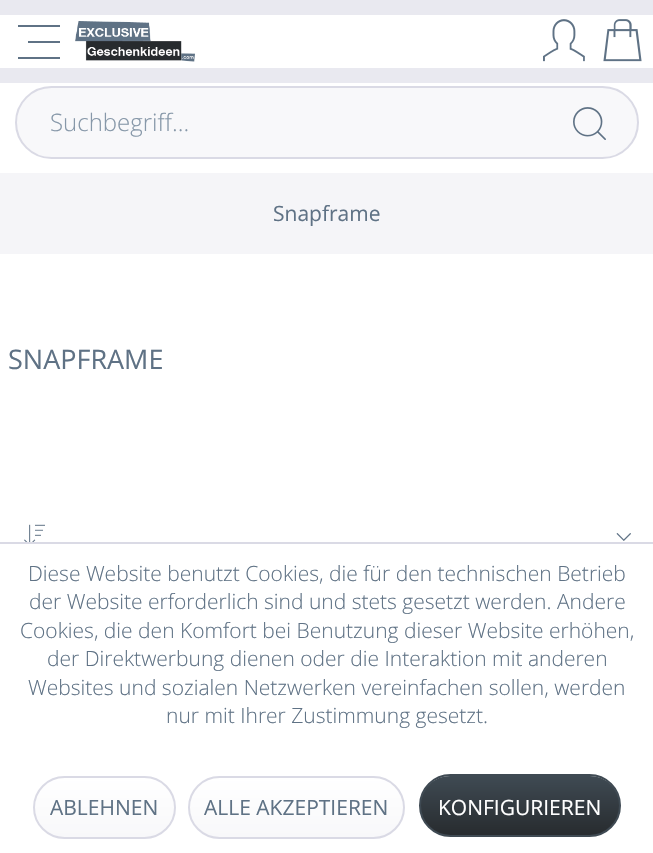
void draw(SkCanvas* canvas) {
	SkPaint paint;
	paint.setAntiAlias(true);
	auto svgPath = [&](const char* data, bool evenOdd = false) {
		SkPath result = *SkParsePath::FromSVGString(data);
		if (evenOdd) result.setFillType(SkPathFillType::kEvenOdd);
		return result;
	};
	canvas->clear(0xffe9e9f0);
	paint.setColor(0xffffffff);
	canvas->drawRect(SkRect::MakeXYWH(0, 15, 653, 53), paint);
	paint.setColor(0xff5f7285);
	canvas->drawPath(svgPath("M60 25H18V27H60ZM60 41H28V43H60ZM60 57H18V59H60Z"), paint);
	canvas->drawImageRect(SkImages::DeferredFromEncodedData(SkData::MakeFromFileName("img1.png")), SkRect::MakeXYWH(75, 21, 120, 41), SkSamplingOptions());
	canvas->drawImageRect(SkImages::DeferredFromEncodedData(SkData::MakeFromFileName("img2.png")), SkRect::MakeXYWH(543, 19, 42, 43), SkSamplingOptions());
	canvas->drawImageRect(SkImages::DeferredFromEncodedData(SkData::MakeFromFileName("img3.png")), SkRect::MakeXYWH(603, 19, 39, 43), SkSamplingOptions());
	paint.setColor(0xffffffff);
	canvas->drawRect(SkRect::MakeXYWH(0, 83, 653, 459), paint);
	paint.setColor(0xfff8f8fa);
	canvas->drawRoundRect(SkRect::MakeXYWH(16, 87, 622, 71), 35.5, 35.5, paint);
	paint.setStroke(true);
	paint.setStrokeWidth(2);
	paint.setColor(0xffdadae5);
	canvas->drawRoundRect(SkRect::MakeXYWH(16, 87, 622, 71), 35.5, 35.5, paint);
	SkFont f1(fontMgr->matchFamilyStyle("Open Sans", SkFontStyle(300, SkFontStyle::kNormal_Width, SkFontStyle::kUpright_Slant)), 24);
	f1.setSubpixel(true);
	paint.setStroke(false);
	paint.setColor(0xff8798a9);
	canvas->drawString("Suchbegriff...", 50, 131, f1, paint);
	canvas->drawImageRect(SkImages::DeferredFromEncodedData(SkData::MakeFromFileName("img4.png")), SkRect::MakeXYWH(573, 107, 33, 33), SkSamplingOptions());
	paint.setColor(0xfff5f5f8);
	canvas->drawRect(SkRect::MakeXYWH(0, 173, 653, 81), paint);
	SkFont f2(fontMgr->matchFamilyStyle("Open Sans", SkFontStyle::Normal()), 21);
	f2.setSubpixel(true);
	paint.setColor(0xff5f7285);
	canvas->drawString("Snapframe", 273, 221, f2, paint);
	SkFont f3(fontMgr->matchFamilyStyle("Open Sans", SkFontStyle::Normal()), 27);
	f3.setSubpixel(true);
	canvas->drawString("SNAPFRAME", 8, 369, f3, paint);
	canvas->drawImageRect(SkImages::DeferredFromEncodedData(SkData::MakeFromFileName("img5.png")), SkRect::MakeXYWH(24, 524, 21, 18), SkSamplingOptions());
	canvas->drawImageRect(SkImages::DeferredFromEncodedData(SkData::MakeFromFileName("img6.png")), SkRect::MakeXYWH(616, 533, 15, 8), SkSamplingOptions());
	paint.setColor(0xffffffff);
	canvas->drawRect(SkRect::MakeXYWH(0, 544, 653, 309), paint);
	paint.setColor(0xffdadae5);
	canvas->drawRect(SkRect::MakeXYWH(0, 542, 653, 2), paint);
	SkFont f4(fontMgr->matchFamilyStyle("Open Sans", SkFontStyle(300, SkFontStyle::kNormal_Width, SkFontStyle::kUpright_Slant)), 21);
	f4.setSubpixel(true);
	paint.setColor(0xff5f7285);
	canvas->drawString("Diese Website benutzt Cookies, die für den technischen Betrieb", 28, 581, f4, paint);
	canvas->drawString("der Website erforderlich sind und stets gesetzt werden. Andere", 29, 609, f4, paint);
	canvas->drawString("Cookies, die den Komfort bei Benutzung dieser Website erhöhen,", 20, 638, f4, paint);
	canvas->drawString("der Direktwerbung dienen oder die Interaktion mit anderen", 47, 666, f4, paint);
	canvas->drawString("Websites und sozialen Netzwerken vereinfachen sollen, werden", 28, 695, f4, paint);
	canvas->drawString("nur mit Ihrer Zustimmung gesetzt.", 166, 723, f4, paint);
	{
		const SkColor colors[] = {0xffffffff, 0xfff8f8fa};
		const float stops[] = {0, 1};
		const SkPoint ends[] = {{104, 777}, {104, 837}};
		paint.setShader(SkGradientShader::MakeLinear(ends, colors, stops, 2, SkTileMode::kClamp));
		paint.setAlpha(255);
	}
	canvas->drawRoundRect(SkRect::MakeXYWH(35, 777, 139, 60), 30, 30, paint);
	paint.setStroke(true);
	paint.setShader(nullptr);
	paint.setColor(0xffdadae5);
	canvas->drawRoundRect(SkRect::MakeXYWH(34, 777, 141, 61), 30.5, 30.5, paint);
	paint.setStroke(false);
	paint.setColor(0xff5f7285);
	canvas->drawString("ABLEHNEN", 50, 815, f2, paint);
	{
		const SkColor colors[] = {0xffffffff, 0xfff8f8fa};
		const float stops[] = {0, 1};
		const SkPoint ends[] = {{296, 777}, {296, 837}};
		paint.setShader(SkGradientShader::MakeLinear(ends, colors, stops, 2, SkTileMode::kClamp));
		paint.setAlpha(255);
	}
	canvas->drawRoundRect(SkRect::MakeXYWH(189, 777, 215, 60), 30, 30, paint);
	paint.setStroke(true);
	paint.setShader(nullptr);
	paint.setColor(0xffdadae5);
	canvas->drawRoundRect(SkRect::MakeXYWH(189, 777, 215, 61), 30.5, 30.5, paint);
	paint.setStroke(false);
	paint.setColor(0xff5f7285);
	canvas->drawString("ALLE AKZEPTIEREN", 204, 815, f2, paint);
	{
		const SkColor colors[] = {0xff3f4a53, 0xff272b2e};
		const float stops[] = {0, 1};
		const SkPoint ends[] = {{520, 776}, {520, 836}};
		paint.setShader(SkGradientShader::MakeLinear(ends, colors, stops, 2, SkTileMode::kClamp));
		paint.setAlpha(255);
	}
	canvas->drawRoundRect(SkRect::MakeXYWH(420, 776, 200, 60), 30, 30, paint);
	paint.setStroke(true);
	paint.setShader(nullptr);
	paint.setColor(0xff3f4a53);
	canvas->drawRoundRect(SkRect::MakeXYWH(420, 775, 200, 61), 30.5, 30.5, paint);
	paint.setStroke(false);
	paint.setColor(0xffffffff);
	canvas->drawString("KONFIGURIEREN", 438, 815, f2, paint);
}
